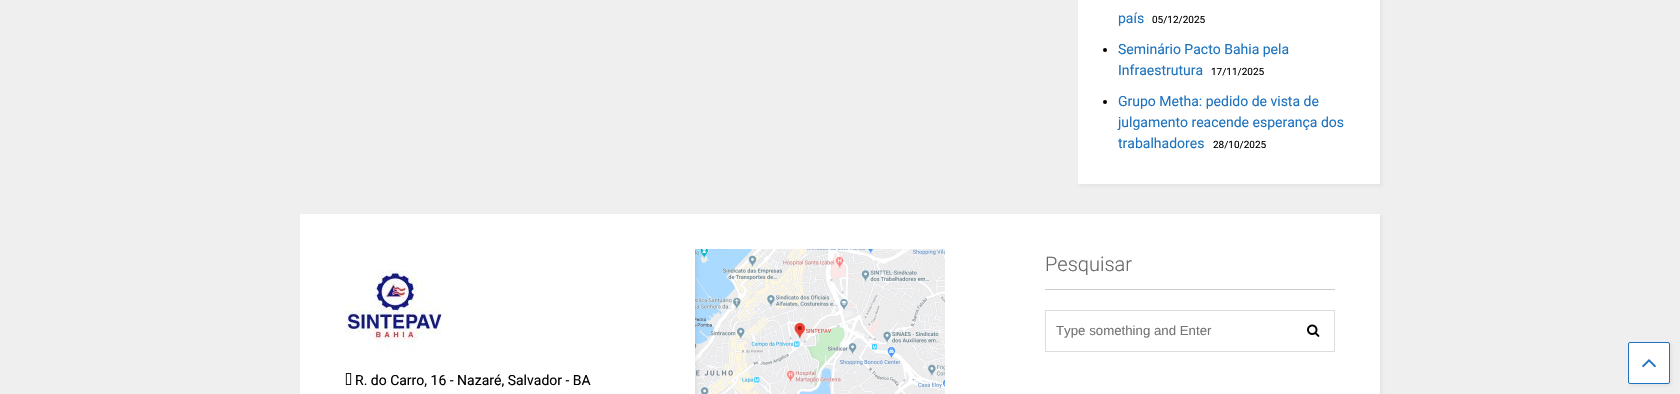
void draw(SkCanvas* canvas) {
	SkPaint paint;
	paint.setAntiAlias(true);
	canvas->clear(0xffefefef);
	paint.setColor(0x0d000000);
	paint.setMaskFilter(SkMaskFilter::MakeBlur(kNormal_SkBlurStyle, 1.5));
	canvas->drawRect(SkRect::MakeXYWH(1080, -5, 302, 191), paint);
	paint.setMaskFilter(nullptr);
	paint.setColor(0xffffffff);
	canvas->drawRect(SkRect::MakeXYWH(1078, 0, 302, 184), paint);
	SkFont f1(fontMgr->matchFamilyStyle("Roboto", SkFontStyle::Normal()), 14);
	f1.setSubpixel(true);
	paint.setColor(0xff1e73be);
	canvas->drawString("país", 1118, 23, f1, paint);
	SkFont f2(fontMgr->matchFamilyStyle("Roboto", SkFontStyle::Normal()), 10);
	f2.setSubpixel(true);
	paint.setColor(0xff000000);
	canvas->drawString("05/12/2025", 1152, 23, f2, paint);
	canvas->drawCircle(1105, 50, 2, paint);
	paint.setColor(0xff1e73be);
	canvas->drawString("Seminário Pacto Bahia pela", 1118, 54, f1, paint);
	canvas->drawString("Infraestrutura", 1118, 75, f1, paint);
	paint.setColor(0xff000000);
	canvas->drawString("17/11/2025", 1211, 75, f2, paint);
	canvas->drawCircle(1105, 102, 2, paint);
	paint.setColor(0xff1e73be);
	canvas->drawString("Grupo Metha: pedido de vista de", 1118, 106, f1, paint);
	canvas->drawString("julgamento reacende esperança dos", 1118, 127, f1, paint);
	canvas->drawString("trabalhadores", 1118, 148, f1, paint);
	paint.setColor(0xff000000);
	canvas->drawString("28/10/2025", 1213, 148, f2, paint);
	paint.setColor(0x0d000000);
	paint.setMaskFilter(SkMaskFilter::MakeBlur(kNormal_SkBlurStyle, 1.5));
	canvas->drawRect(SkRect::MakeXYWH(302, 216, 1080, 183), paint);
	paint.setMaskFilter(nullptr);
	paint.setColor(0xffffffff);
	canvas->drawRect(SkRect::MakeXYWH(300, 214, 1080, 180), paint);
	canvas->drawImageRect(SkImages::DeferredFromEncodedData(SkData::MakeFromFileName("img1.png")), SkRect::MakeXYWH(695, 249, 250, 145), SkSamplingOptions());
	paint.setColor(0xffcccccc);
	canvas->drawRect(SkRect::MakeXYWH(1045, 289, 290, 1), paint);
	SkFont f3(fontMgr->matchFamilyStyle("Roboto", SkFontStyle(300, SkFontStyle::kNormal_Width, SkFontStyle::kUpright_Slant)), 20);
	f3.setSubpixel(true);
	paint.setColor(0xff666666);
	canvas->drawString("Pesquisar", 1045, 271, f3, paint);
	paint.setStroke(true);
	paint.setStrokeWidth(1);
	paint.setColor(0xffdddddd);
	canvas->drawRect(SkRect::MakeXYWH(1045.5, 310.5, 289, 41), paint);
	SkFont f4(fontMgr->matchFamilyStyle("Liberation Sans", SkFontStyle::Normal()), 13.25);
	f4.setSubpixel(true);
	paint.setStroke(false);
	paint.setColor(0xff757575);
	canvas->drawString("Type something and Enter", 1056, 335, f4, paint);
	canvas->drawImageRect(SkImages::DeferredFromEncodedData(SkData::MakeFromFileName("img2.png")), SkRect::MakeXYWH(1307, 324, 13, 13), SkSamplingOptions());
	canvas->drawImageRect(SkImages::DeferredFromEncodedData(SkData::MakeFromFileName("img3.png")), SkRect::MakeXYWH(345, 270, 98, 80), SkSamplingOptions());
	canvas->drawImageRect(SkImages::DeferredFromEncodedData(SkData::MakeFromFileName("img4.png")), SkRect::MakeXYWH(345, 373, 7, 12), SkSamplingOptions());
	paint.setColor(0xff000000);
	canvas->drawString("R. do Carro, 16 - Nazaré, Salvador - BA", 355, 385, f1, paint);
	paint.setColor(0x0d000000);
	paint.setMaskFilter(SkMaskFilter::MakeBlur(kNormal_SkBlurStyle, 1.5));
	canvas->drawRoundRect(SkRect::MakeXYWH(1630, 344, 42, 42), 2, 2, paint);
	paint.setMaskFilter(nullptr);
	paint.setColor(0xffffffff);
	canvas->drawRoundRect(SkRect::MakeXYWH(1628.5, 342.5, 41, 41), 1.5, 1.5, paint);
	paint.setStroke(true);
	paint.setColor(0xff1e73be);
	canvas->drawRoundRect(SkRect::MakeXYWH(1628.5, 342.5, 41, 41), 1.5, 1.5, paint);
	canvas->drawImageRect(SkImages::DeferredFromEncodedData(SkData::MakeFromFileName("img5.png")), SkRect::MakeXYWH(1642, 359, 14, 9), SkSamplingOptions());
}
